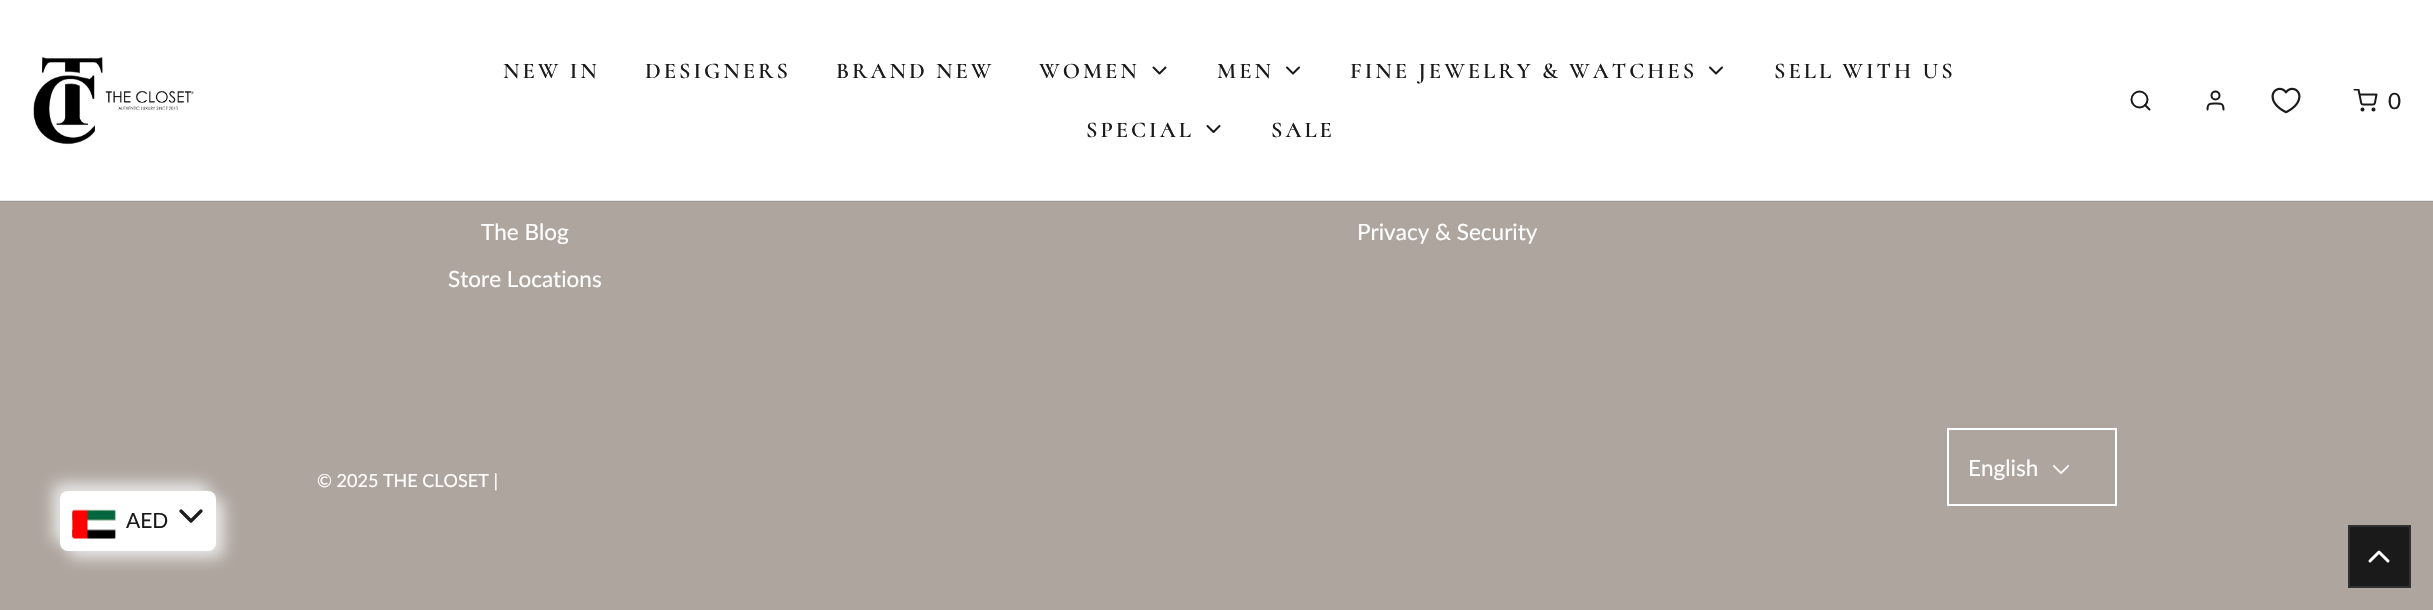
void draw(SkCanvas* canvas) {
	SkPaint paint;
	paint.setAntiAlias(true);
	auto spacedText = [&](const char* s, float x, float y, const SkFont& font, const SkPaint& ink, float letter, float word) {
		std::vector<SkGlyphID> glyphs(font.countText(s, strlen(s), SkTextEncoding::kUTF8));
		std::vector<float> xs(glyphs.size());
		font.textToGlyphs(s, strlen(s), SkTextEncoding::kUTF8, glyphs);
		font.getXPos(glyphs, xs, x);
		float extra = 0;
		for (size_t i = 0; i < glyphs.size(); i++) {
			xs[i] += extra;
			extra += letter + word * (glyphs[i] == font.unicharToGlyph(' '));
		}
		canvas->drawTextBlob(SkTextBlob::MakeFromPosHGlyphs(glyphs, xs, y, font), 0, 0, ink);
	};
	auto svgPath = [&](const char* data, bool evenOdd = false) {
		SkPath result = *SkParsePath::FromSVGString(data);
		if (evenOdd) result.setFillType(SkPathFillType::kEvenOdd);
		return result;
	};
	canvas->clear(0xffaea59e);
	paint.setColor(0xffffffff);
	canvas->drawRect(SkRect::MakeXYWH(0, 0, 2433, 200), paint);
	paint.setColor(0xffe8e8e8);
	canvas->drawRect(SkRect::MakeXYWH(0, 200, 2433, 1), paint);
	canvas->drawImageRect(SkImages::DeferredFromEncodedData(SkData::MakeFromFileName("img1.png")), SkRect::MakeXYWH(33, 57, 161, 88), SkSamplingOptions());
	SkFont f1(fontMgr->matchFamilyStyle("Cormorant", SkFontStyle(600, SkFontStyle::kNormal_Width, SkFontStyle::kUpright_Slant)), 22.5);
	f1.setSubpixel(true);
	paint.setColor(0xff1a1a1a);
	spacedText("NEW IN", 503, 78, f1, paint, 3, 0);
	spacedText("DESIGNERS", 645, 78, f1, paint, 3, 0);
	spacedText("BRAND NEW", 836, 78, f1, paint, 3, 0);
	spacedText("WOMEN", 1039, 78, f1, paint, 3, 0);
	paint.setStroke(true);
	paint.setStrokeWidth(2);
	paint.setStrokeCap(SkPaint::kRound_Cap);
	paint.setStrokeJoin(SkPaint::kRound_Join);
	canvas->drawPath(svgPath("M1153.5 67.5L1159.5 73.5L1165.5 67.5"), paint);
	paint.setStroke(false);
	spacedText("MEN", 1217, 78, f1, paint, 3, 0);
	paint.setStroke(true);
	canvas->drawPath(svgPath("M1287 67.5L1293 73.5L1299 67.5"), paint);
	paint.setStroke(false);
	spacedText("FINE JEWELRY & WATCHES", 1350, 78, f1, paint, 3, 0);
	paint.setStroke(true);
	canvas->drawPath(svgPath("M1710 67.5L1716 73.5L1722 67.5"), paint);
	paint.setStroke(false);
	spacedText("SELL WITH US", 1774, 78, f1, paint, 3, 0);
	spacedText("SPECIAL", 1086, 137, f1, paint, 3, 0);
	paint.setStroke(true);
	canvas->drawPath(svgPath("M1207.5 126L1213.5 132L1219.5 126"), paint);
	paint.setStroke(false);
	spacedText("SALE", 1271, 137, f1, paint, 3, 0);
	paint.setStroke(true);
	paint.setStrokeCap(SkPaint::kButt_Cap);
	paint.setStrokeJoin(SkPaint::kMiter_Join);
	canvas->drawCircle(2139.5, 99.5, 8, paint);
	paint.setStrokeCap(SkPaint::kRound_Cap);
	paint.setStrokeJoin(SkPaint::kRound_Join);
	canvas->drawPath(svgPath("M2149.5 109.5L2145 105"), paint);
	canvas->drawPath(svgPath("M2223.5 109.5C2223.5 103 2221 103.5 2215.5 103.5C2210 103.5 2207.5 103 2207.5 109.5"), paint);
	paint.setStrokeCap(SkPaint::kButt_Cap);
	paint.setStrokeJoin(SkPaint::kMiter_Join);
	canvas->drawCircle(2215.5, 95.5, 4, paint);
	canvas->drawImageRect(SkImages::DeferredFromEncodedData(SkData::MakeFromFileName("img2.png")), SkRect::MakeXYWH(2271, 87, 30, 27), SkSamplingOptions());
	canvas->drawImageRect(SkImages::DeferredFromEncodedData(SkData::MakeFromFileName("img3.png")), SkRect::MakeXYWH(2353, 89, 25, 23), SkSamplingOptions());
	SkFont f2(fontMgr->matchFamilyStyle("Lato", SkFontStyle::Normal()), 22.5);
	f2.setSubpixel(true);
	paint.setStroke(false);
	canvas->drawString("0", 2388, 109, f2, paint);
	paint.setColor(0xff9f9791);
	canvas->drawRect(SkRect::MakeXYWH(0, 201, 2433, 1), paint);
	paint.setColor(0xffffffff);
	canvas->drawString("The Blog", 481, 240, f2, paint);
	canvas->drawString("Store Locations", 448, 287, f2, paint);
	canvas->drawString("Privacy & Security", 1357, 240, f2, paint);
	SkFont f3(fontMgr->matchFamilyStyle("Lato", SkFontStyle::Normal()), 18);
	f3.setSubpixel(true);
	canvas->drawString("© 2025 THE CLOSET |", 317, 487, f3, paint);
	paint.setStroke(true);
	canvas->drawRect(SkRect::MakeXYWH(1948, 429, 168, 76), paint);
	paint.setStroke(false);
	canvas->drawString("English", 1968, 476, f2, paint);
	canvas->drawImageRect(SkImages::DeferredFromEncodedData(SkData::MakeFromFileName("img4.png")), SkRect::MakeXYWH(2053, 465, 16, 9), SkSamplingOptions());
	paint.setColor(0xffe8e8e8);
	paint.setMaskFilter(SkMaskFilter::MakeBlur(kNormal_SkBlurStyle, 7.5));
	canvas->drawRoundRect(SkRect::MakeXYWH(53, 483, 156, 60), 8, 8, paint);
	paint.setMaskFilter(nullptr);
	paint.setMaskFilter(SkMaskFilter::MakeBlur(kNormal_SkBlurStyle, 7.5));
	canvas->drawRoundRect(SkRect::MakeXYWH(68, 498, 156, 60), 8, 8, paint);
	paint.setMaskFilter(nullptr);
	paint.setColor(0xffffffff);
	canvas->drawRoundRect(SkRect::MakeXYWH(60, 491, 156, 60), 8, 8, paint);
	canvas->drawImageRect(SkImages::DeferredFromEncodedData(SkData::MakeFromFileName("img5.png")), SkRect::MakeXYWH(72, 509, 44, 30), SkSamplingOptions());
	SkFont f4(fontMgr->matchFamilyStyle("Lato", SkFontStyle::Normal()), 21);
	f4.setSubpixel(true);
	paint.setColor(0xff1a1a1a);
	canvas->drawString("AED", 126, 528, f4, paint);
	paint.setStroke(true);
	paint.setStrokeWidth(3.3);
	paint.setStrokeCap(SkPaint::kRound_Cap);
	paint.setStrokeJoin(SkPaint::kRound_Join);
	paint.setColor(0xff1e1e1e);
	canvas->drawPath(svgPath("M181 511L191 521L201 511"), paint);
	paint.setStroke(false);
	paint.setColor(0xff1a1a1a);
	canvas->drawRect(SkRect::MakeXYWH(2349, 526, 61, 61), paint);
	paint.setStroke(true);
	paint.setStrokeWidth(2);
	paint.setStrokeCap(SkPaint::kButt_Cap);
	paint.setStrokeJoin(SkPaint::kMiter_Join);
	paint.setColor(0xff313131);
	canvas->drawRect(SkRect::MakeXYWH(2349, 526, 61, 61), paint);
	paint.setStrokeWidth(3);
	paint.setStrokeCap(SkPaint::kRound_Cap);
	paint.setStrokeJoin(SkPaint::kRound_Join);
	paint.setColor(0xffffffff);
	canvas->drawPath(svgPath("M2388 561L2379 552L2370 561"), paint);
}
